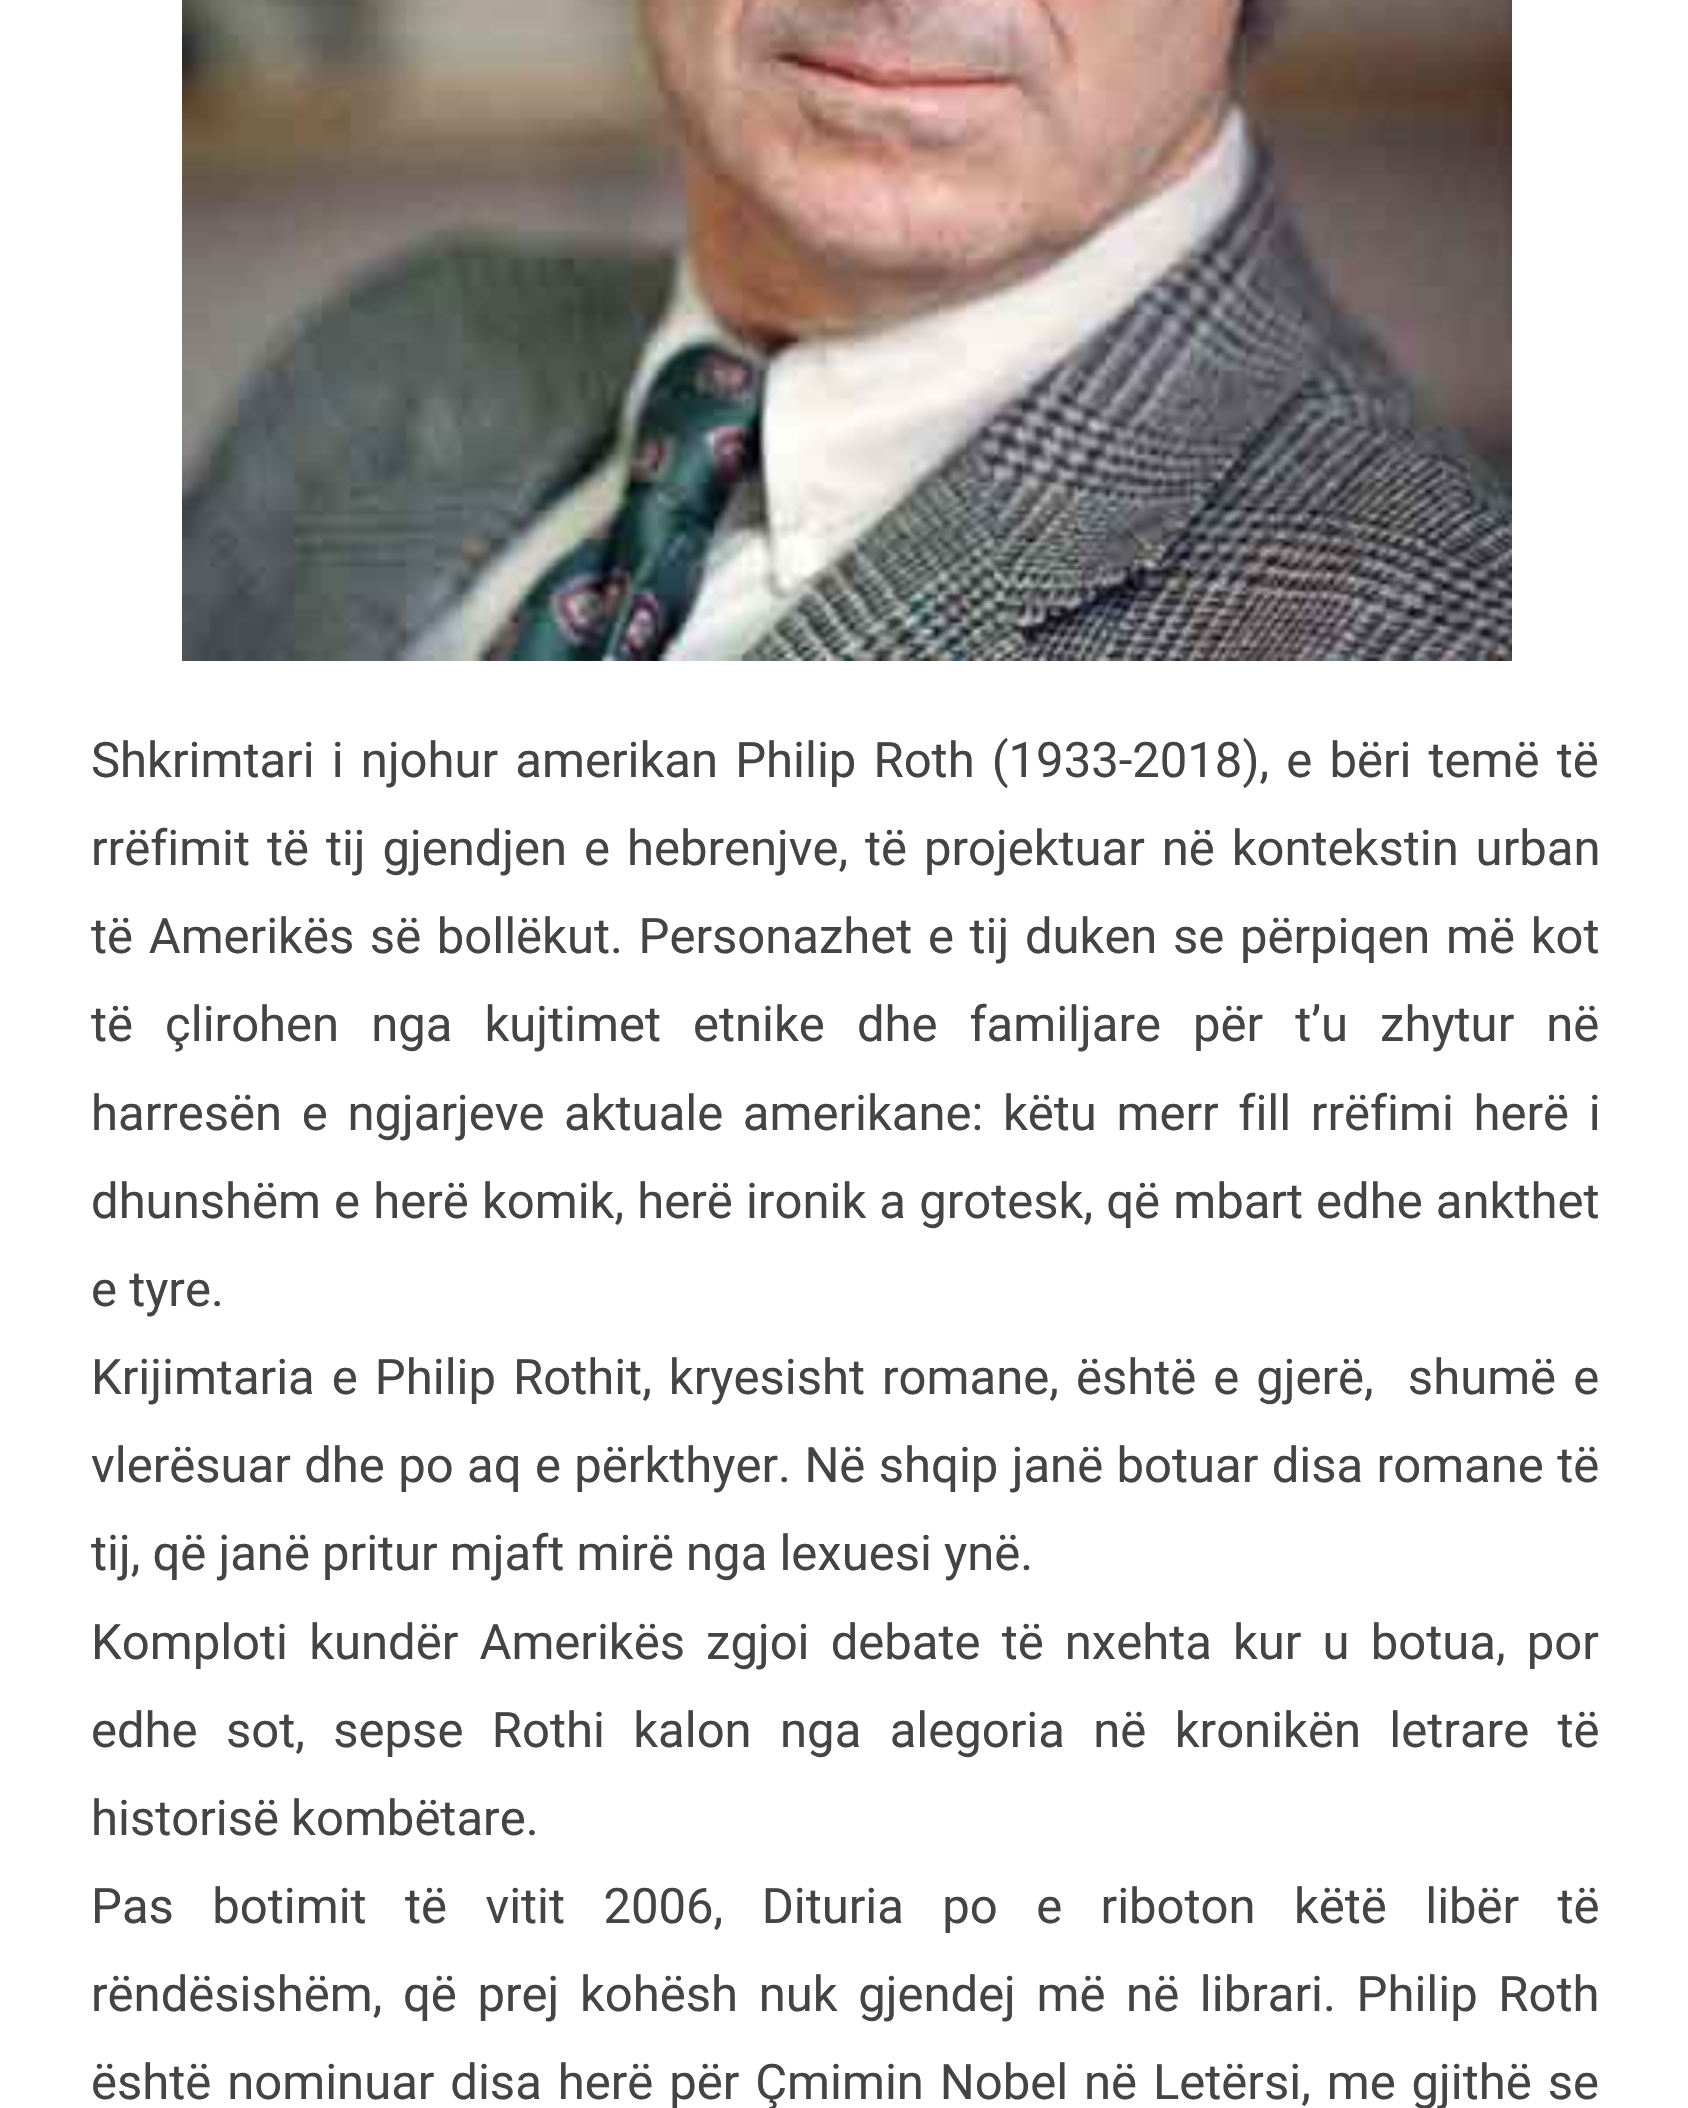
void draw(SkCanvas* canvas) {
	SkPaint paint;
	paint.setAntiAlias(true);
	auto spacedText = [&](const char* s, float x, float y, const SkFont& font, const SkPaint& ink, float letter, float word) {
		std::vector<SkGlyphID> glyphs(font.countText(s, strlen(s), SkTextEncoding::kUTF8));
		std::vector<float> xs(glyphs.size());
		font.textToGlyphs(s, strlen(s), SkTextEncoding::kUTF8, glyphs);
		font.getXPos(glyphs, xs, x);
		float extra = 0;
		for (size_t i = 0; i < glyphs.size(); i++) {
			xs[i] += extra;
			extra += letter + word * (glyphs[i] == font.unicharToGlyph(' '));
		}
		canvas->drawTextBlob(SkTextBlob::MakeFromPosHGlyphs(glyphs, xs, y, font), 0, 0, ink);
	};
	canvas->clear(0xffffffff);
	canvas->drawImageRect(SkImages::DeferredFromEncodedData(SkData::MakeFromFileName("img1.png")), SkRect::MakeXYWH(182, 0, 1330, 661), SkSamplingOptions());
	SkFont f1(fontMgr->matchFamilyStyle("Roboto", SkFontStyle::Normal()), 49);
	f1.setSubpixel(true);
	paint.setColor(0xff444444);
	spacedText("Shkrimtari i njohur amerikan Philip Roth (1933-2018), e bëri temë të", 91, 777, f1, paint, 0, 5);
	spacedText("rrëfimit të tij gjendjen e hebrenjve, të projektuar në kontekstin urban", 91, 865, f1, paint, 0, 4.75);
	spacedText("të Amerikës së bollëkut. Personazhet e tij duken se përpiqen më kot", 91, 953, f1, paint, 0, 3.5);
	spacedText("të çlirohen nga kujtimet etnike dhe familjare për t’u zhytur në", 91, 1041, f1, paint, 0, 19.9);
	spacedText("harresën e ngjarjeve aktuale amerikane: këtu merr fill rrëfimi herë i", 91, 1130, f1, paint, 0, 7.5);
	spacedText("dhunshëm e herë komik, herë ironik a grotesk, që mbart edhe ankthet", 91, 1218, f1, paint, 0, 1);
	canvas->drawString("e tyre.", 91, 1306, f1, paint);
	spacedText("Krijimtaria e Philip Rothit, kryesisht romane, është e gjerë,  shumë e", 91, 1394, f1, paint, 0, 4.9);
	spacedText("vlerësuar dhe po aq e përkthyer. Në shqip janë botuar disa romane të", 91, 1482, f1, paint, 0, 1.25);
	canvas->drawString("tij, që janë pritur mjaft mirë nga lexuesi ynë.", 91, 1570, f1, paint);
	spacedText("Komploti kundër Amerikës zgjoi debate të nxehta kur u botua, por", 91, 1659, f1, paint, 0, 9);
	spacedText("edhe sot, sepse Rothi kalon nga alegoria në kronikën letrare të", 91, 1747, f1, paint, 0, 16.25);
	canvas->drawString("historisë kombëtare.", 91, 1835, f1, paint);
	spacedText("Pas botimit të vitit 2006, Dituria po e riboton këtë libër të", 91, 1923, f1, paint, 0, 26.25);
	spacedText("rëndësishëm, që prej kohësh nuk gjendej më në librari. Philip Roth", 91, 2011, f1, paint, 0, 8.5);
	spacedText("është nominuar disa herë për Çmimin Nobel në Letërsi, me gjithë se", 91, 2099, f1, paint, 0, 3.75);
}
